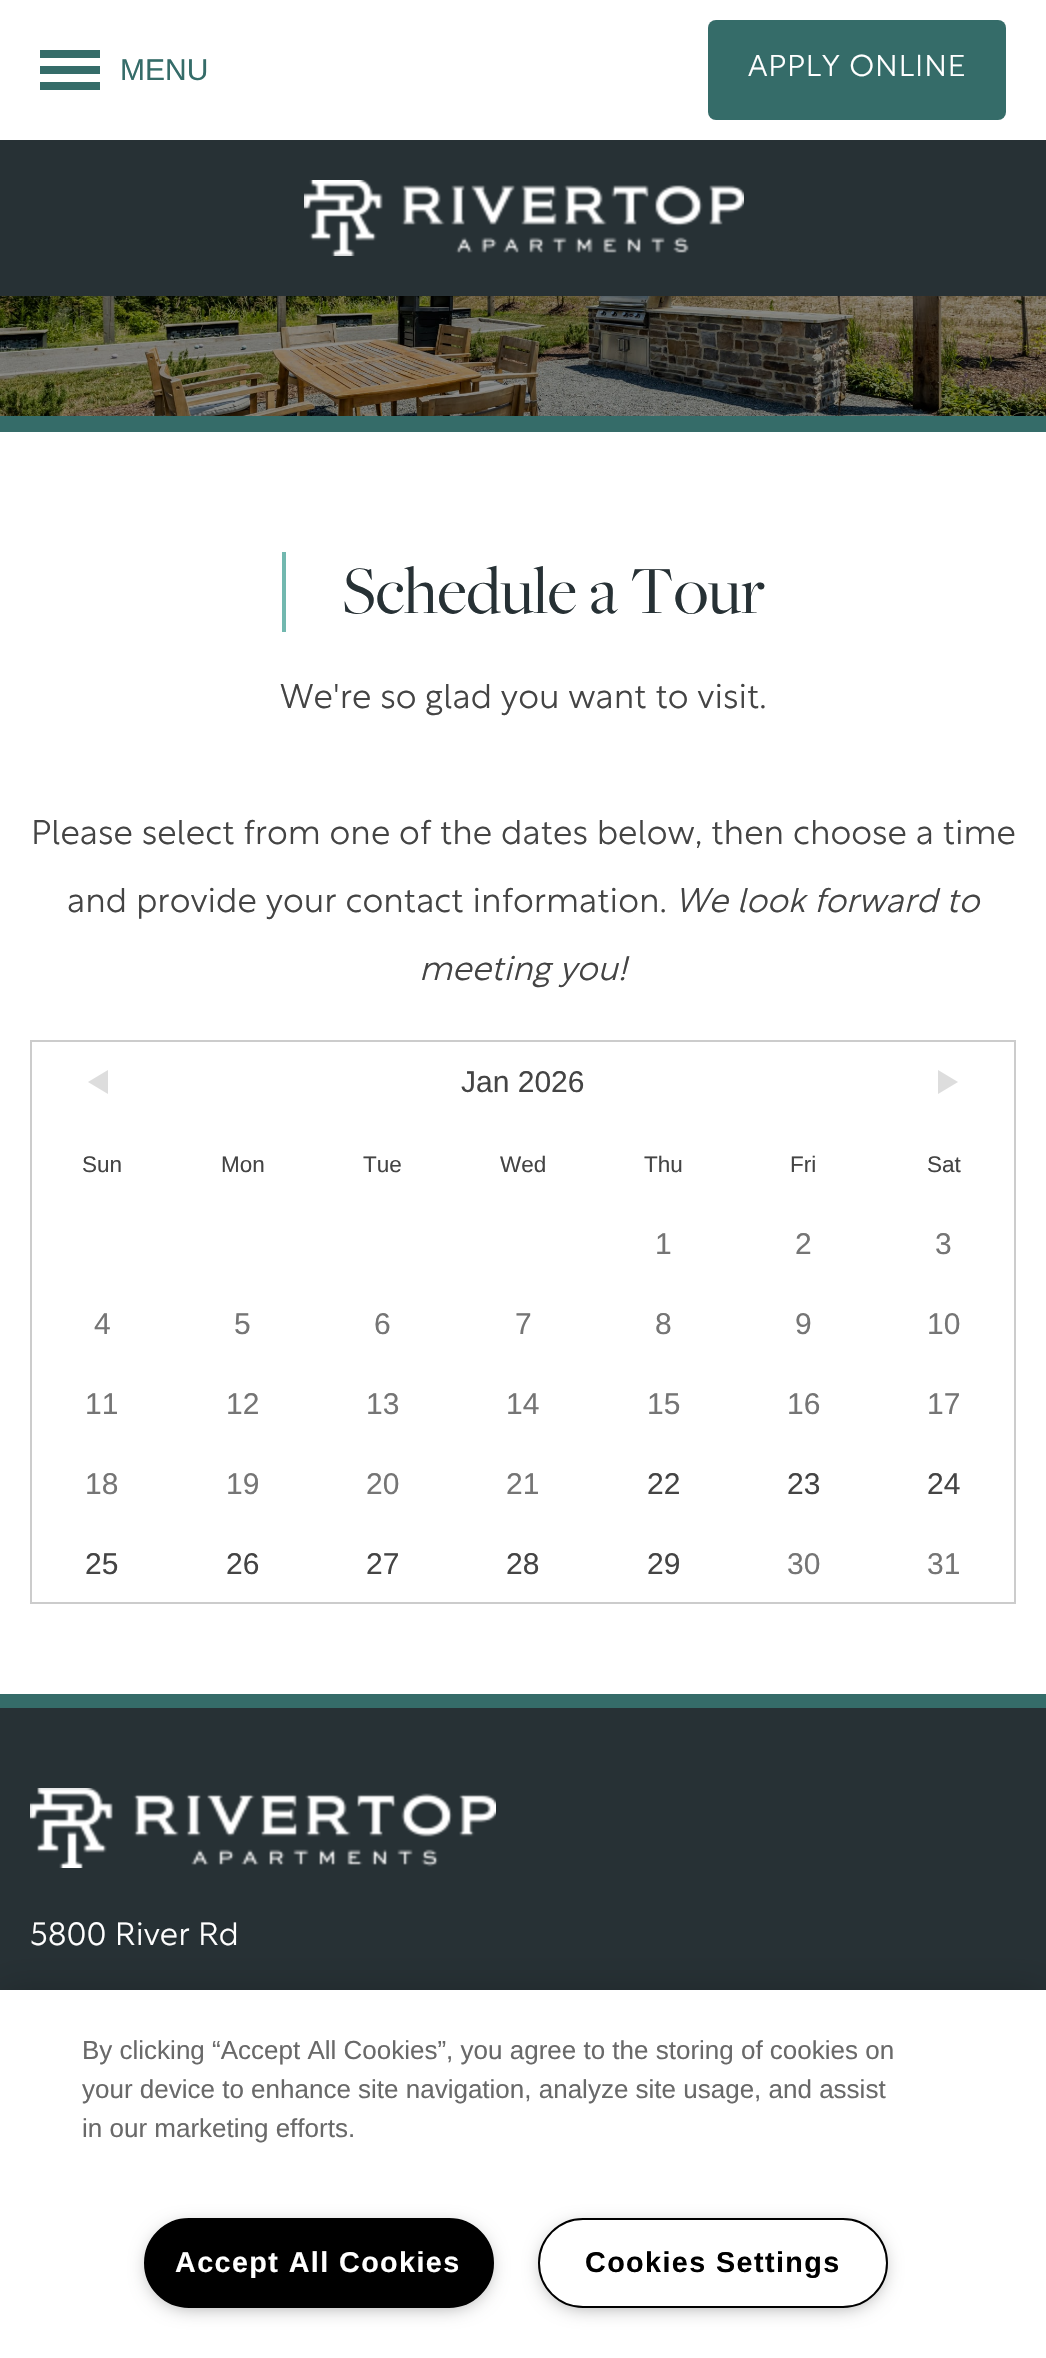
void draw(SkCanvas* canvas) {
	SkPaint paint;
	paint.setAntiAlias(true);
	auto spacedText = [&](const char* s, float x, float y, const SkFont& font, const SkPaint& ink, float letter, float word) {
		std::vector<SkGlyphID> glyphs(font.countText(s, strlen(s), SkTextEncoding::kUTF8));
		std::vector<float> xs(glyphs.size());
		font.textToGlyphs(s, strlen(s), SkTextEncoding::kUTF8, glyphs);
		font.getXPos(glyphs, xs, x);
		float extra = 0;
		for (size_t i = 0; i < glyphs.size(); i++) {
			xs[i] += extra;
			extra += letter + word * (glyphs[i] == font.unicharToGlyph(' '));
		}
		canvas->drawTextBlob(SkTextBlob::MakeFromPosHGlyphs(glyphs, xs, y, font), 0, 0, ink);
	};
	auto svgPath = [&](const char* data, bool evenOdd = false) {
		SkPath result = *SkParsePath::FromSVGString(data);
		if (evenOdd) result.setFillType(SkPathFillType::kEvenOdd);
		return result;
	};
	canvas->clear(0xffffffff);
	paint.setColor(0xff356c69);
	canvas->drawRect(SkRect::MakeXYWH(40, 50, 60, 8), paint);
	canvas->drawRect(SkRect::MakeXYWH(40, 66, 60, 8), paint);
	canvas->drawRect(SkRect::MakeXYWH(40, 82, 60, 8), paint);
	SkFont f1(fontMgr->matchFamilyStyle("Liberation Sans", SkFontStyle::Normal()), 30);
	f1.setSubpixel(true);
	canvas->drawString("MENU", 120, 80, f1, paint);
	canvas->drawRoundRect(SkRect::MakeXYWH(708, 20, 298, 100), 8, 8, paint);
	SkFont f2(fontMgr->matchFamilyStyle("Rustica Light", SkFontStyle(300, SkFontStyle::kNormal_Width, SkFontStyle::kUpright_Slant)), 30);
	f2.setSubpixel(true);
	paint.setColor(0xffffffff);
	spacedText("APPLY ONLINE", 748, 76, f2, paint, 0.9, 0);
	paint.setColor(0xff273135);
	canvas->drawRect(SkRect::MakeXYWH(0, 140, 1046, 156), paint);
	canvas->drawImageRect(SkImages::DeferredFromEncodedData(SkData::MakeFromFileName("img1.png")), SkRect::MakeXYWH(304, 180, 440, 76), SkSamplingOptions());
	canvas->drawImageRect(SkImages::DeferredFromEncodedData(SkData::MakeFromFileName("img2.png")), SkRect::MakeXYWH(0, 296, 1046, 120), SkSamplingOptions());
	paint.setColor(0xff356c69);
	canvas->drawRect(SkRect::MakeXYWH(0, 416, 1046, 16), paint);
	paint.setColor(0xff72b8af);
	canvas->drawRect(SkRect::MakeXYWH(282, 552, 4, 80), paint);
	SkFont f3(fontMgr->matchFamilyStyle("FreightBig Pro", SkFontStyle::Normal()), 70);
	f3.setSubpixel(true);
	paint.setColor(0xff273135);
	canvas->drawString("Schedule a Tour", 342, 613, f3, paint);
	SkFont f4(fontMgr->matchFamilyStyle("Rustica Light", SkFontStyle(300, SkFontStyle::kNormal_Width, SkFontStyle::kUpright_Slant)), 34);
	f4.setSubpixel(true);
	paint.setColor(0xff444444);
	canvas->drawString("We're so glad you want to visit.", 280, 708, f4, paint);
	canvas->drawString("Please select from one of the dates below, then choose a time", 31, 844, f4, paint);
	canvas->drawString("and provide your contact information.", 67, 912, f4, paint);
	SkFont f5(fontMgr->matchFamilyStyle("Rustica Light", SkFontStyle(300, SkFontStyle::kNormal_Width, SkFontStyle::kItalic_Slant)), 34);
	f5.setSubpixel(true);
	canvas->drawString("We look forward to", 675, 912, f5, paint);
	canvas->drawString("meeting you!", 419, 980, f5, paint);
	paint.setStroke(true);
	paint.setStrokeWidth(2);
	paint.setColor(0xffcccccc);
	canvas->drawRect(SkRect::MakeXYWH(31, 1041, 984, 562), paint);
	paint.setStroke(false);
	paint.setColor(0xffdddddd);
	canvas->drawPath(svgPath("M108 1070V1094L88 1082Z"), paint);
	paint.setColor(0xff444444);
	canvas->drawString("Jan 2026", 461, 1092, f1, paint);
	paint.setColor(0xffdddddd);
	canvas->drawPath(svgPath("M938 1094V1070L958 1082Z"), paint);
	SkFont f6(fontMgr->matchFamilyStyle("Liberation Sans", SkFontStyle::Normal()), 22.5);
	f6.setSubpixel(true);
	paint.setColor(0xff444444);
	canvas->drawString("Sun", 82, 1172, f6, paint);
	canvas->drawString("Mon", 221, 1172, f6, paint);
	canvas->drawString("Tue", 363, 1172, f6, paint);
	canvas->drawString("Wed", 500, 1172, f6, paint);
	canvas->drawString("Thu", 644, 1172, f6, paint);
	canvas->drawString("Fri", 790, 1172, f6, paint);
	canvas->drawString("Sat", 927, 1172, f6, paint);
	paint.setColor(0xff757575);
	canvas->drawString("1", 655, 1254, f1, paint);
	canvas->drawString("2", 795, 1254, f1, paint);
	canvas->drawString("3", 935, 1254, f1, paint);
	canvas->drawString("4", 94, 1334, f1, paint);
	canvas->drawString("5", 234, 1334, f1, paint);
	canvas->drawString("6", 374, 1334, f1, paint);
	canvas->drawString("7", 515, 1334, f1, paint);
	canvas->drawString("8", 655, 1334, f1, paint);
	canvas->drawString("9", 795, 1334, f1, paint);
	canvas->drawString("10", 927, 1334, f1, paint);
	canvas->drawString("11", 85, 1414, f1, paint);
	canvas->drawString("12", 226, 1414, f1, paint);
	canvas->drawString("13", 366, 1414, f1, paint);
	canvas->drawString("14", 506, 1414, f1, paint);
	canvas->drawString("15", 647, 1414, f1, paint);
	canvas->drawString("16", 787, 1414, f1, paint);
	canvas->drawString("17", 927, 1414, f1, paint);
	canvas->drawString("18", 85, 1494, f1, paint);
	canvas->drawString("19", 226, 1494, f1, paint);
	canvas->drawString("20", 366, 1494, f1, paint);
	canvas->drawString("21", 506, 1494, f1, paint);
	paint.setColor(0xff444444);
	canvas->drawString("22", 647, 1494, f1, paint);
	canvas->drawString("23", 787, 1494, f1, paint);
	canvas->drawString("24", 927, 1494, f1, paint);
	canvas->drawString("25", 85, 1574, f1, paint);
	canvas->drawString("26", 226, 1574, f1, paint);
	canvas->drawString("27", 366, 1574, f1, paint);
	canvas->drawString("28", 506, 1574, f1, paint);
	canvas->drawString("29", 647, 1574, f1, paint);
	paint.setColor(0xff757575);
	canvas->drawString("30", 787, 1574, f1, paint);
	canvas->drawString("31", 927, 1574, f1, paint);
	paint.setColor(0xff356c69);
	canvas->drawRect(SkRect::MakeXYWH(0, 1694, 1046, 14), paint);
	paint.setColor(0xff273135);
	canvas->drawRect(SkRect::MakeXYWH(0, 1708, 1046, 282), paint);
	canvas->drawImageRect(SkImages::DeferredFromEncodedData(SkData::MakeFromFileName("img3.png")), SkRect::MakeXYWH(30, 1788, 466, 80), SkSamplingOptions());
	SkFont f7(fontMgr->matchFamilyStyle("Rustica Light", SkFontStyle(300, SkFontStyle::kNormal_Width, SkFontStyle::kUpright_Slant)), 32);
	f7.setSubpixel(true);
	paint.setColor(0xffffffff);
	canvas->drawString("5800 River Rd", 30, 1945, f7, paint);
	paint.setColor(0x33000000);
	paint.setMaskFilter(SkMaskFilter::MakeBlur(kNormal_SkBlurStyle, 18));
	canvas->drawRect(SkRect::MakeXYWH(0, 1990, 1046, 368), paint);
	paint.setMaskFilter(nullptr);
	paint.setColor(0xffffffff);
	canvas->drawRect(SkRect::MakeXYWH(0, 1990, 1046, 368), paint);
	SkFont f8(fontMgr->matchFamilyStyle("Liberation Sans", SkFontStyle::Normal()), 26);
	f8.setSubpixel(true);
	paint.setColor(0xff696969);
	canvas->drawString("By clicking “Accept All Cookies”, you agree to the storing of cookies on", 82, 2059, f8, paint);
	canvas->drawString("your device to enhance site navigation, analyze site usage, and assist", 82, 2098, f8, paint);
	canvas->drawString("in our marketing efforts.", 82, 2137, f8, paint);
	paint.setColor(0xff999999);
	paint.setMaskFilter(SkMaskFilter::MakeBlur(kNormal_SkBlurStyle, 10));
	canvas->drawRoundRect(SkRect::MakeXYWH(150, 2228, 338, 78), 39, 39, paint);
	paint.setMaskFilter(nullptr);
	paint.setColor(0xff000000);
	canvas->drawRoundRect(SkRect::MakeXYWH(145, 2219, 348, 88), 44, 44, paint);
	paint.setStroke(true);
	canvas->drawRoundRect(SkRect::MakeXYWH(145, 2219, 348, 88), 44, 44, paint);
	SkFont f9(fontMgr->matchFamilyStyle("Liberation Sans", SkFontStyle::Bold()), 28.75);
	f9.setSubpixel(true);
	paint.setStroke(false);
	paint.setColor(0xffffffff);
	spacedText("Accept All Cookies", 175, 2272, f9, paint, 1.4, 0);
	paint.setColor(0xff999999);
	paint.setMaskFilter(SkMaskFilter::MakeBlur(kNormal_SkBlurStyle, 10));
	canvas->drawRoundRect(SkRect::MakeXYWH(544, 2228, 338, 78), 39, 39, paint);
	paint.setMaskFilter(nullptr);
	paint.setColor(0xffffffff);
	canvas->drawRoundRect(SkRect::MakeXYWH(539, 2219, 348, 88), 44, 44, paint);
	paint.setStroke(true);
	paint.setColor(0xff000000);
	canvas->drawRoundRect(SkRect::MakeXYWH(539, 2219, 348, 88), 44, 44, paint);
	paint.setStroke(false);
	spacedText("Cookies Settings", 585, 2272, f9, paint, 1.4, 0);
}
